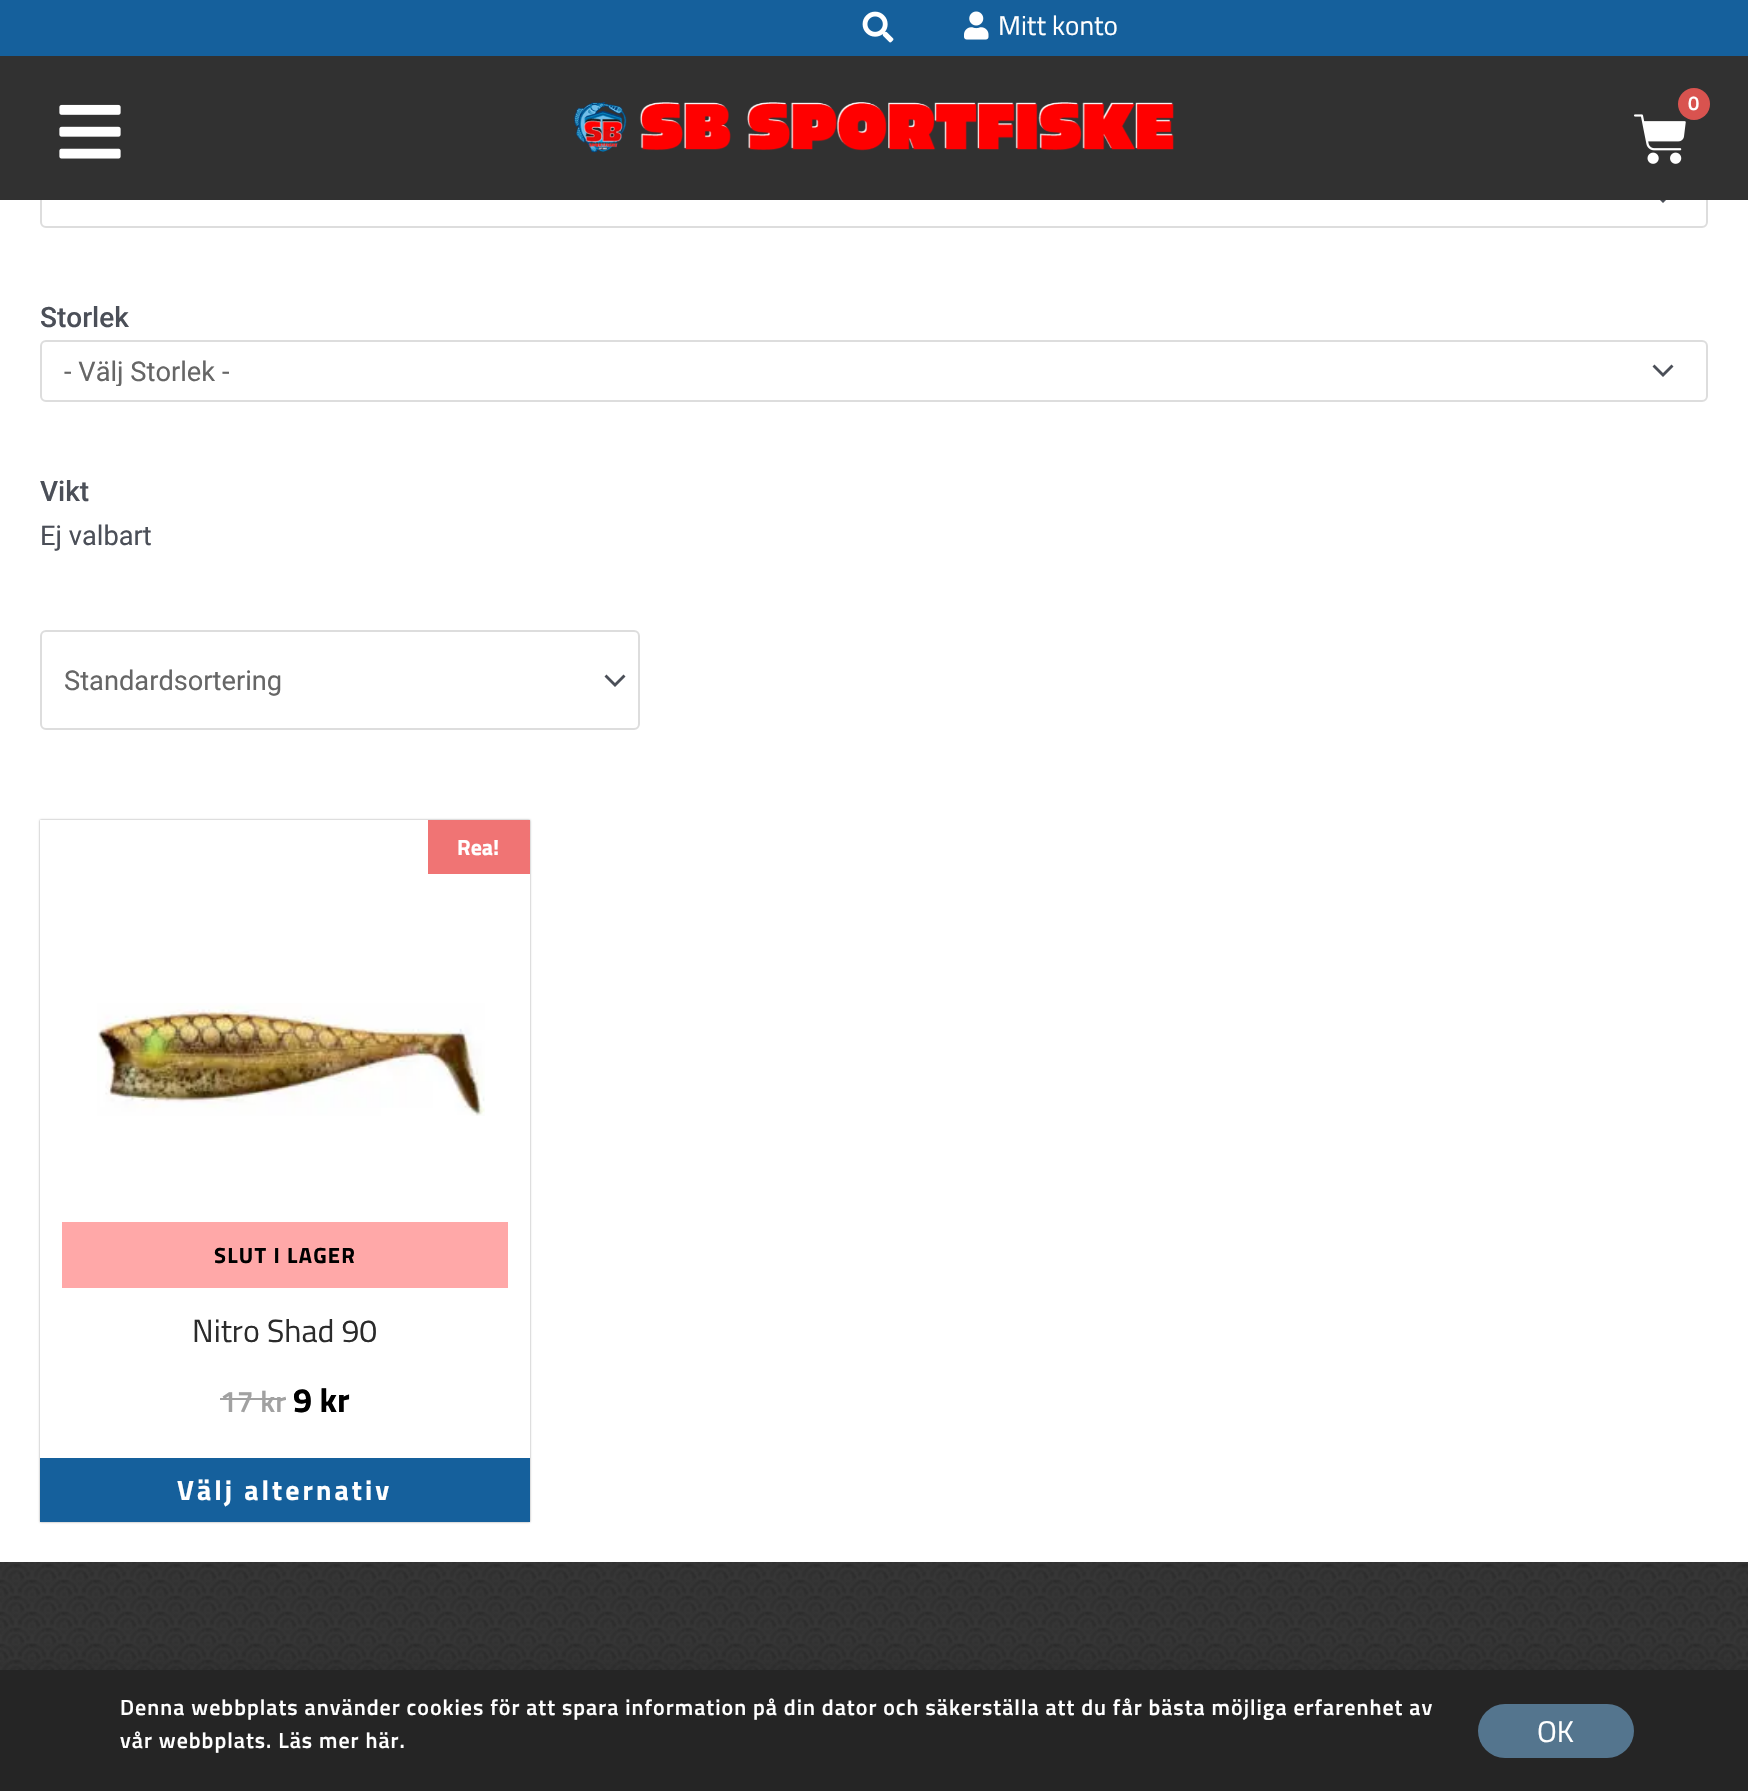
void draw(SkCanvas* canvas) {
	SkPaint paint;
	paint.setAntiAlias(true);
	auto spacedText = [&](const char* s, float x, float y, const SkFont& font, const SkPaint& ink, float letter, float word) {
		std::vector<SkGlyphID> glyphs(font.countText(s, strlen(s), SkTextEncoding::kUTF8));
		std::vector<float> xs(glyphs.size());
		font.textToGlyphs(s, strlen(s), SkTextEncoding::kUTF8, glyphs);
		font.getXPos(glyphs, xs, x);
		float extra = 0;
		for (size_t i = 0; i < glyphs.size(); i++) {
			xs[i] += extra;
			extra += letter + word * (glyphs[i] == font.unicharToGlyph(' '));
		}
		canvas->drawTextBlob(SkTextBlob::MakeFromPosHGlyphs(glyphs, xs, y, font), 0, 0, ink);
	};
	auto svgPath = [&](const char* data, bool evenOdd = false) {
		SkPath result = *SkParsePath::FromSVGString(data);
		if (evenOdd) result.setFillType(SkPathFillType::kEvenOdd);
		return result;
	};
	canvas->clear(0xffffffff);
	paint.setColor(0xff15609c);
	canvas->drawRect(SkRect::MakeXYWH(0, 0, 1748, 56), paint);
	canvas->drawImageRect(SkImages::DeferredFromEncodedData(SkData::MakeFromFileName("img1.png")), SkRect::MakeXYWH(862, 11, 32, 32), SkSamplingOptions());
	canvas->drawImageRect(SkImages::DeferredFromEncodedData(SkData::MakeFromFileName("img2.png")), SkRect::MakeXYWH(964, 11, 25, 29), SkSamplingOptions());
	SkFont f1(fontMgr->matchFamilyStyle("Titillium Web", SkFontStyle::Normal()), 27.25);
	f1.setSubpixel(true);
	paint.setColor(0xffffffff);
	canvas->drawString("Mitt konto", 998, 35, f1, paint);
	paint.setColor(0xff4b4f58);
	canvas->drawPath(svgPath("M1652.5 192.5L1663 203L1673.5 192.5L1671.5 190.5L1663 199L1654.5 190.5Z"), paint);
	paint.setStroke(true);
	paint.setStrokeWidth(2);
	paint.setColor(0xffdddddd);
	canvas->drawRoundRect(SkRect::MakeXYWH(41, 167, 1666, 60), 5, 5, paint);
	paint.setStroke(false);
	paint.setColor(0xff313131);
	canvas->drawRect(SkRect::MakeXYWH(0, 56, 1748, 144), paint);
	canvas->drawImageRect(SkImages::DeferredFromEncodedData(SkData::MakeFromFileName("img3.png")), SkRect::MakeXYWH(59, 104, 62, 55), SkSamplingOptions());
	canvas->drawImageRect(SkImages::DeferredFromEncodedData(SkData::MakeFromFileName("img4.png")), SkRect::MakeXYWH(574, 102, 600, 51), SkSamplingOptions());
	canvas->drawImageRect(SkImages::DeferredFromEncodedData(SkData::MakeFromFileName("img5.png")), SkRect::MakeXYWH(1634, 114, 52, 50), SkSamplingOptions());
	paint.setColor(0xffd9534f);
	canvas->drawCircle(1694, 104, 16, paint);
	SkFont f2(fontMgr->matchFamilyStyle("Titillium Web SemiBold", SkFontStyle(600, SkFontStyle::kNormal_Width, SkFontStyle::kUpright_Slant)), 20);
	f2.setSubpixel(true);
	paint.setColor(0xffffffff);
	canvas->drawString("0", 1688, 110, f2, paint);
	SkFont f3(fontMgr->matchFamilyStyle("Roboto", SkFontStyle(500, SkFontStyle::kNormal_Width, SkFontStyle::kUpright_Slant)), 28);
	f3.setSubpixel(true);
	paint.setColor(0xff4b4f58);
	canvas->drawString("Storlek", 40, 327, f3, paint);
	canvas->drawPath(svgPath("M1652.5 366.5L1663 377L1673.5 366.5L1671.5 364.5L1663 373L1654.5 364.5Z"), paint);
	paint.setStroke(true);
	paint.setColor(0xffdddddd);
	canvas->drawRoundRect(SkRect::MakeXYWH(41, 341, 1666, 60), 5, 5, paint);
	canvas->save();
	canvas->clipRect(SkRect::MakeXYWH(64, 354, 1588, 32));
	SkFont f4(fontMgr->matchFamilyStyle("Roboto", SkFontStyle::Normal()), 27.25);
	f4.setSubpixel(true);
	paint.setStroke(false);
	paint.setColor(0xff666666);
	canvas->drawString("- Välj Storlek -", 64, 381, f4, paint);
	canvas->restore();
	paint.setColor(0xff4b4f58);
	canvas->drawString("Vikt", 40, 501, f3, paint);
	canvas->drawString("Ej valbart", 40, 545, f4, paint);
	canvas->drawPath(svgPath("M604.5 676.5L615 687L625.5 676.5L623.5 674.5L615 683L606.5 674.5Z"), paint);
	paint.setStroke(true);
	paint.setColor(0xffdddddd);
	canvas->drawRoundRect(SkRect::MakeXYWH(41, 631, 598, 98), 5, 5, paint);
	paint.setStroke(false);
	paint.setColor(0xff666666);
	canvas->drawString("Standardsortering", 64, 690, f4, paint);
	canvas->save();
	canvas->clipPath(svgPath("M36 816H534V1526H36ZM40 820H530V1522H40Z", true), true);
	paint.setColor(0x66000000);
	paint.setMaskFilter(SkMaskFilter::MakeBlur(kNormal_SkBlurStyle, 1));
	canvas->drawRect(SkRect::MakeXYWH(40, 820, 490, 702), paint);
	paint.setMaskFilter(nullptr);
	canvas->restore();
	paint.setColor(0xfff07474);
	canvas->drawRect(SkRect::MakeXYWH(428, 820, 102, 54), paint);
	SkFont f5(fontMgr->matchFamilyStyle("Titillium Web", SkFontStyle::Bold()), 22);
	f5.setSubpixel(true);
	paint.setColor(0xffffffff);
	canvas->drawString("Rea!", 457, 855, f5, paint);
	canvas->drawImageRect(SkImages::DeferredFromEncodedData(SkData::MakeFromFileName("img6.png")), SkRect::MakeXYWH(97, 1003, 388, 113), SkSamplingOptions());
	paint.setColor(0xffffa8a8);
	canvas->drawRect(SkRect::MakeXYWH(62, 1222, 446, 66), paint);
	paint.setColor(0xff000000);
	spacedText("SLUT I LAGER", 214, 1263, f5, paint, 1.25, 0);
	SkFont f6(fontMgr->matchFamilyStyle("Titillium Web", SkFontStyle::Normal()), 32);
	f6.setSubpixel(true);
	paint.setColor(0xff2b2b2b);
	canvas->drawString("Nitro Shad 90", 192, 1342, f6, paint);
	SkFont f7(fontMgr->matchFamilyStyle("Titillium Web SemiBold", SkFontStyle(600, SkFontStyle::kNormal_Width, SkFontStyle::kUpright_Slant)), 30);
	f7.setSubpixel(true);
	paint.setColor(0xffa1a1a1);
	canvas->drawString("17 kr", 220, 1412, f7, paint);
	canvas->drawRect(SkRect::MakeXYWH(220, 1398, 66, 2), paint);
	SkFont f8(fontMgr->matchFamilyStyle("Titillium Web", SkFontStyle::Bold()), 34);
	f8.setSubpixel(true);
	paint.setColor(0xff000000);
	canvas->drawString("9 kr", 293, 1412, f8, paint);
	paint.setColor(0xff15609c);
	canvas->drawRect(SkRect::MakeXYWH(40, 1458, 490, 64), paint);
	SkFont f9(fontMgr->matchFamilyStyle("Titillium Web", SkFontStyle::Bold()), 28);
	f9.setSubpixel(true);
	paint.setColor(0xffffffff);
	spacedText("Välj alternativ", 177, 1500, f9, paint, 3, 0);
	paint.setColor(0xff363636);
	canvas->drawRect(SkRect::MakeXYWH(0, 1562, 1748, 108), paint);
	canvas->drawImageRect(SkImages::DeferredFromEncodedData(SkData::MakeFromFileName("img7.png")), SkRect::MakeXYWH(0, 1562, 1748, 108), SkSamplingOptions());
	paint.setColor(0x33000000);
	paint.setMaskFilter(SkMaskFilter::MakeBlur(kNormal_SkBlurStyle, 23));
	canvas->drawRect(SkRect::MakeXYWH(-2, 1680, 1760, 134), paint);
	paint.setMaskFilter(nullptr);
	paint.setColor(0xff252525);
	canvas->drawRect(SkRect::MakeXYWH(0, 1670, 1748, 121), paint);
	SkFont f10(fontMgr->matchFamilyStyle("Titillium Web SemiBold", SkFontStyle(600, SkFontStyle::kNormal_Width, SkFontStyle::kUpright_Slant)), 22);
	f10.setSubpixel(true);
	paint.setColor(0xffffffff);
	spacedText("Denna webbplats använder cookies för att spara information på din dator och säkerställa att du får bästa möjliga erfarenhet av", 120, 1715, f10, paint, 1, 0);
	spacedText("vår webbplats. Läs mer här.", 120, 1748, f10, paint, 1, 0);
	paint.setColor(0xff54758e);
	canvas->drawRoundRect(SkRect::MakeXYWH(1478, 1704, 156, 54), 27, 27, paint);
	SkFont f11(fontMgr->matchFamilyStyle("Titillium Web", SkFontStyle::Normal()), 30);
	f11.setSubpixel(true);
	paint.setColor(0xffffffff);
	canvas->drawString("OK", 1537, 1742, f11, paint);
}
